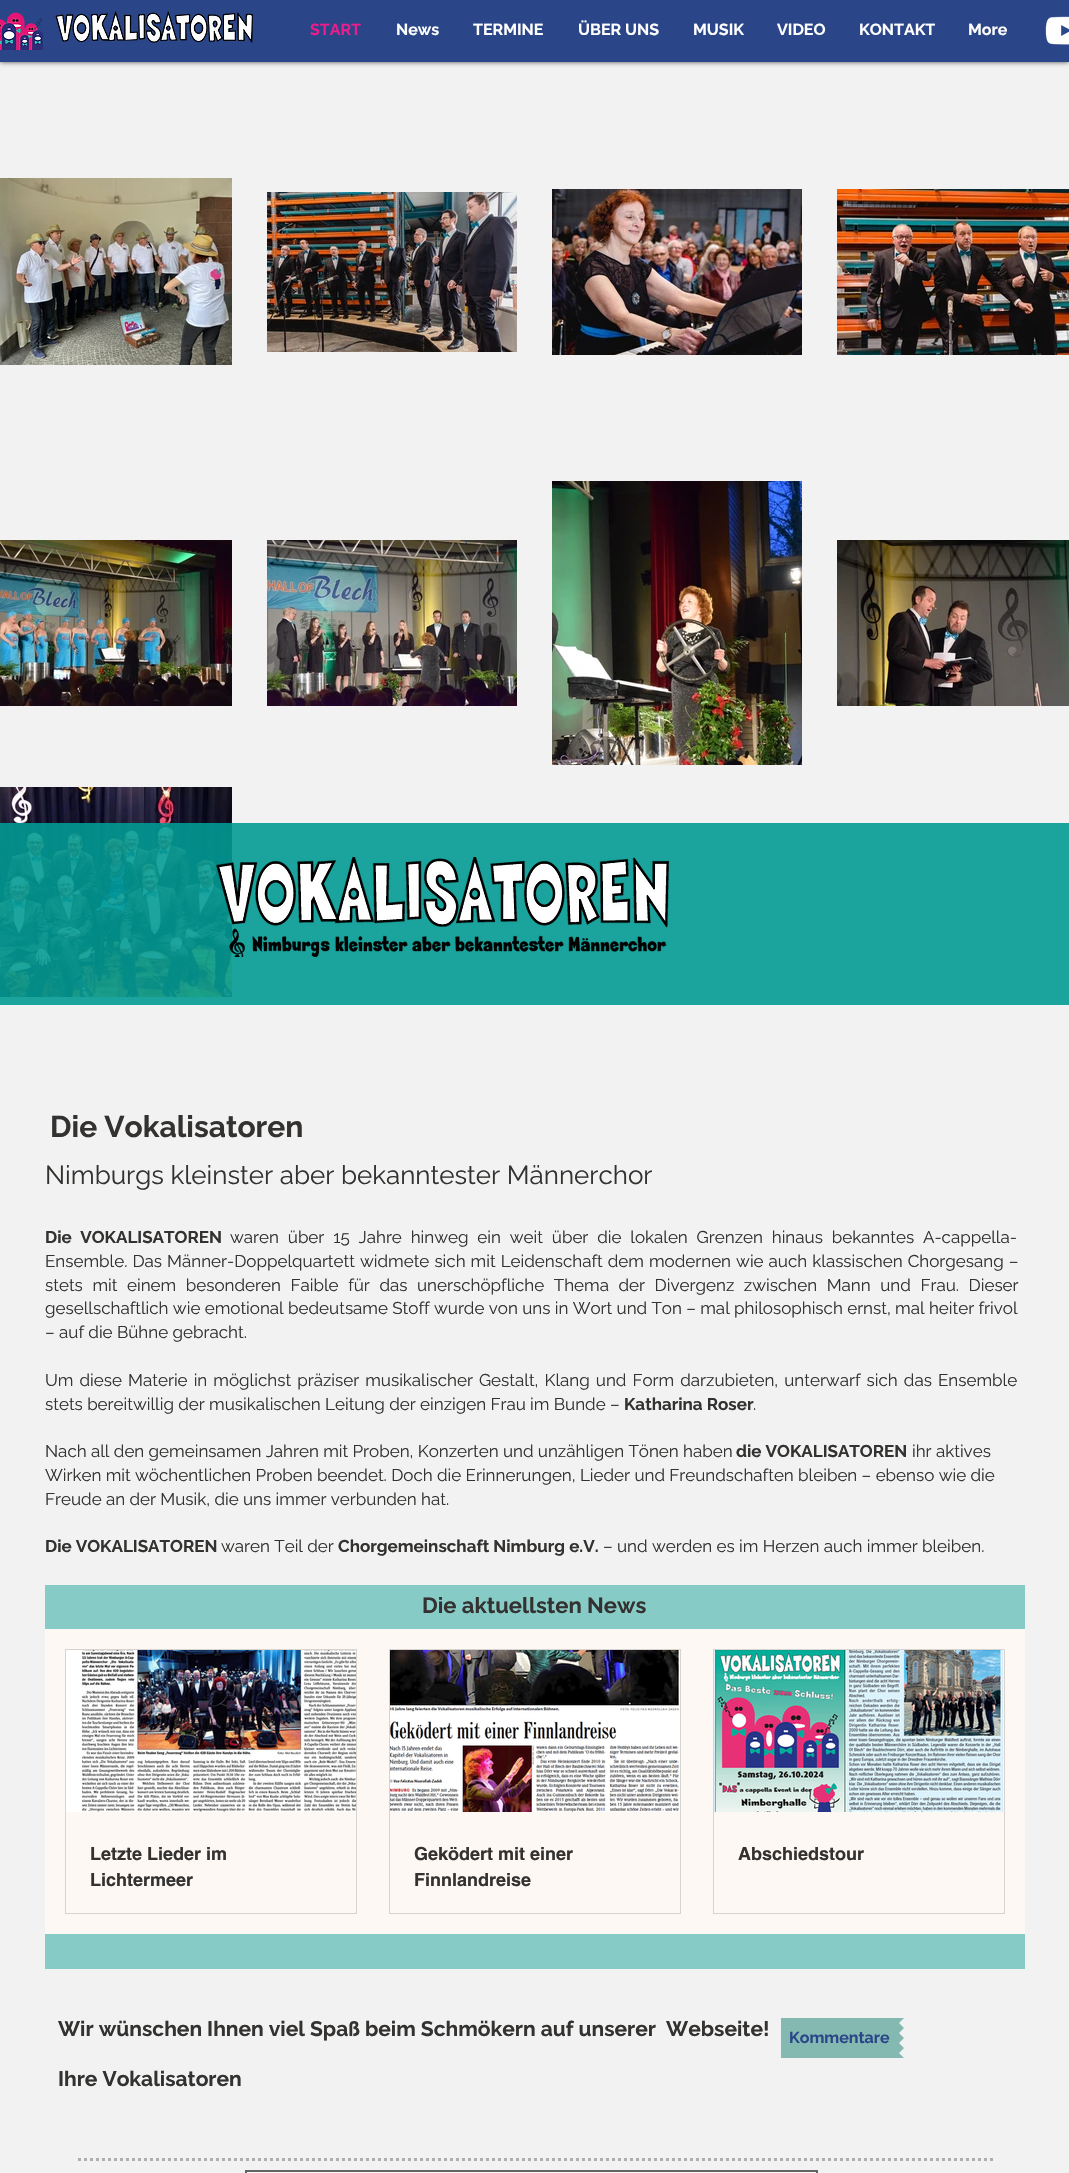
void draw(SkCanvas* canvas) {
	SkPaint paint;
	paint.setAntiAlias(true);
	auto spacedText = [&](const char* s, float x, float y, const SkFont& font, const SkPaint& ink, float letter, float word) {
		std::vector<SkGlyphID> glyphs(font.countText(s, strlen(s), SkTextEncoding::kUTF8));
		std::vector<float> xs(glyphs.size());
		font.textToGlyphs(s, strlen(s), SkTextEncoding::kUTF8, glyphs);
		font.getXPos(glyphs, xs, x);
		float extra = 0;
		for (size_t i = 0; i < glyphs.size(); i++) {
			xs[i] += extra;
			extra += letter + word * (glyphs[i] == font.unicharToGlyph(' '));
		}
		canvas->drawTextBlob(SkTextBlob::MakeFromPosHGlyphs(glyphs, xs, y, font), 0, 0, ink);
	};
	auto svgPath = [&](const char* data, bool evenOdd = false) {
		SkPath result = *SkParsePath::FromSVGString(data);
		if (evenOdd) result.setFillType(SkPathFillType::kEvenOdd);
		return result;
	};
	canvas->clear(0xfff2f2f2);
	paint.setColor(0xb3000000);
	paint.setMaskFilter(SkMaskFilter::MakeBlur(kNormal_SkBlurStyle, 2.5));
	canvas->drawRect(SkRect::MakeXYWH(0, -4, 1069, 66), paint);
	paint.setMaskFilter(nullptr);
	paint.setColor(0xff2a4688);
	canvas->drawRect(SkRect::MakeXYWH(0, 0, 1069, 62), paint);
	canvas->drawImageRect(SkImages::DeferredFromEncodedData(SkData::MakeFromFileName("img1.png")), SkRect::MakeXYWH(0, 12, 43, 38), SkSamplingOptions());
	canvas->drawImageRect(SkImages::DeferredFromEncodedData(SkData::MakeFromFileName("img2.png")), SkRect::MakeXYWH(55, 11, 199, 32), SkSamplingOptions());
	SkFont f1(fontMgr->matchFamilyStyle("Raleway", SkFontStyle::Bold()), 16);
	f1.setSubpixel(true);
	paint.setColor(0xffeb1c8c);
	canvas->drawString("START", 310, 35, f1, paint);
	paint.setColor(0xffffffff);
	canvas->drawString("News", 396, 35, f1, paint);
	canvas->drawString("TERMINE", 473, 35, f1, paint);
	canvas->drawString("ÜBER UNS", 578, 35, f1, paint);
	canvas->drawString("MUSIK", 693, 35, f1, paint);
	canvas->drawString("VIDEO", 777, 35, f1, paint);
	canvas->drawString("KONTAKT", 859, 35, f1, paint);
	canvas->drawString("More", 968, 35, f1, paint);
	canvas->drawImageRect(SkImages::DeferredFromEncodedData(SkData::MakeFromFileName("img3.png")), SkRect::MakeXYWH(1045, 16, 24, 29), SkSamplingOptions());
	canvas->drawImageRect(SkImages::DeferredFromEncodedData(SkData::MakeFromFileName("img4.png")), SkRect::MakeXYWH(0, 178, 232, 187), SkSamplingOptions());
	canvas->drawImageRect(SkImages::DeferredFromEncodedData(SkData::MakeFromFileName("img5.png")), SkRect::MakeXYWH(267, 192, 250, 160), SkSamplingOptions());
	canvas->drawImageRect(SkImages::DeferredFromEncodedData(SkData::MakeFromFileName("img6.png")), SkRect::MakeXYWH(552, 189, 250, 166), SkSamplingOptions());
	canvas->drawImageRect(SkImages::DeferredFromEncodedData(SkData::MakeFromFileName("img7.png")), SkRect::MakeXYWH(837, 189, 232, 166), SkSamplingOptions());
	canvas->drawImageRect(SkImages::DeferredFromEncodedData(SkData::MakeFromFileName("img8.png")), SkRect::MakeXYWH(0, 540, 232, 166), SkSamplingOptions());
	canvas->drawImageRect(SkImages::DeferredFromEncodedData(SkData::MakeFromFileName("img9.png")), SkRect::MakeXYWH(267, 540, 250, 166), SkSamplingOptions());
	canvas->drawImageRect(SkImages::DeferredFromEncodedData(SkData::MakeFromFileName("img10.png")), SkRect::MakeXYWH(552, 481, 250, 284), SkSamplingOptions());
	canvas->drawImageRect(SkImages::DeferredFromEncodedData(SkData::MakeFromFileName("img11.png")), SkRect::MakeXYWH(837, 540, 232, 166), SkSamplingOptions());
	canvas->drawImageRect(SkImages::DeferredFromEncodedData(SkData::MakeFromFileName("img12.png")), SkRect::MakeXYWH(0, 787, 232, 210), SkSamplingOptions());
	paint.setColor(0xe3009a93);
	canvas->drawRect(SkRect::MakeXYWH(0, 823, 1069, 182), paint);
	canvas->drawImageRect(SkImages::DeferredFromEncodedData(SkData::MakeFromFileName("img13.png")), SkRect::MakeXYWH(216, 857, 453, 100), SkSamplingOptions());
	SkFont f2(fontMgr->matchFamilyStyle("Raleway", SkFontStyle::Bold()), 30);
	f2.setSubpixel(true);
	paint.setColor(0xff333231);
	canvas->drawString("Die Vokalisatoren", 50, 1137, f2, paint);
	SkFont f3(fontMgr->matchFamilyStyle("Raleway", SkFontStyle::Normal()), 26);
	f3.setSubpixel(true);
	canvas->drawString("Nimburgs kleinster aber bekanntester Männerchor", 45, 1184, f3, paint);
	SkFont f4(fontMgr->matchFamilyStyle("Raleway", SkFontStyle::Bold()), 17);
	f4.setSubpixel(true);
	spacedText("Die VOKALISATOREN", 45, 1243, f4, paint, 0, 4.5);
	SkFont f5(fontMgr->matchFamilyStyle("Raleway", SkFontStyle::Normal()), 17);
	f5.setSubpixel(true);
	spacedText("waren über 15 Jahre hinweg ein weit über die lokalen Grenzen hinaus bekanntes A-cappella-", 230, 1243, f5, paint, 0, 4.5);
	spacedText("Ensemble. Das Männer-Doppelquartett widmete sich mit Leidenschaft dem modernen wie auch klassischen Chorgesang –", 45, 1267, f5, paint, 0, 0.7);
	spacedText("stets mit einem besonderen Faible für das unerschöpfliche Thema der Divergenz zwischen Mann und Frau. Dieser", 45, 1291, f5, paint, 0, 5.25);
	canvas->drawString("gesellschaftlich wie emotional bedeutsame Stoff wurde von uns in Wort und Ton – mal philosophisch ernst, mal heiter frivol", 45, 1314, f5, paint);
	canvas->drawString("– auf die Bühne gebracht.", 45, 1338, f5, paint);
	spacedText("Um diese Materie in möglichst präziser musikalischer Gestalt, Klang und Form darzubieten, unterwarf sich das Ensemble", 45, 1386, f5, paint, 0, 1.75);
	canvas->drawString("stets bereitwillig der musikalischen Leitung der einzigen Frau im Bunde –", 45, 1410, f5, paint);
	canvas->drawString("Katharina Roser", 624, 1410, f4, paint);
	canvas->drawString(".", 753, 1410, f5, paint);
	canvas->drawString("Nach all den gemeinsamen Jahren mit Proben, Konzerten und unzähligen Tönen haben", 45, 1457, f5, paint);
	canvas->drawString("die VOKALISATOREN", 736, 1457, f4, paint);
	canvas->drawString("ihr aktives", 912, 1457, f5, paint);
	canvas->drawString("Wirken mit wöchentlichen Proben beendet. Doch die Erinnerungen, Lieder und Freundschaften bleiben – ebenso wie die", 45, 1481, f5, paint);
	canvas->drawString("Freude an der Musik, die uns immer verbunden hat.", 45, 1505, f5, paint);
	canvas->drawString("Die VOKALISATOREN", 45, 1552, f4, paint);
	canvas->drawString("waren Teil der", 221, 1552, f5, paint);
	canvas->drawString("Chorgemeinschaft Nimburg e.V.", 338, 1552, f4, paint);
	canvas->drawString("– und werden es im Herzen auch immer bleiben.", 603, 1552, f5, paint);
	paint.setColor(0xff87cbc7);
	canvas->drawRect(SkRect::MakeXYWH(45, 1585, 980, 384), paint);
	SkFont f6(fontMgr->matchFamilyStyle("Raleway", SkFontStyle::Bold()), 22);
	f6.setSubpixel(true);
	paint.setColor(0xff333231);
	canvas->drawString("Die aktuellsten News", 422, 1613, f6, paint);
	paint.setColor(0xfffdf8f4);
	canvas->drawRect(SkRect::MakeXYWH(45, 1629, 980, 305), paint);
	paint.setStroke(true);
	paint.setStrokeWidth(1);
	paint.setColor(0xffd7d3cf);
	canvas->drawRect(SkRect::MakeXYWH(65.5, 1649.5, 291, 264), paint);
	canvas->drawImageRect(SkImages::DeferredFromEncodedData(SkData::MakeFromFileName("img14.png")), SkRect::MakeXYWH(66, 1650, 290, 162), SkSamplingOptions());
	SkFont f7(fontMgr->matchFamilyStyle("helvetica", SkFontStyle::Bold()), 18);
	f7.setSubpixel(true);
	paint.setStroke(false);
	paint.setColor(0xff333231);
	canvas->drawString("Letzte Lieder im", 90, 1860, f7, paint);
	canvas->drawString("Lichtermeer", 90, 1886, f7, paint);
	paint.setStroke(true);
	paint.setColor(0xffd7d3cf);
	canvas->drawRect(SkRect::MakeXYWH(389.5, 1649.5, 291, 264), paint);
	canvas->drawImageRect(SkImages::DeferredFromEncodedData(SkData::MakeFromFileName("img15.png")), SkRect::MakeXYWH(390, 1650, 290, 162), SkSamplingOptions());
	paint.setStroke(false);
	paint.setColor(0xff333231);
	canvas->drawString("Geködert mit einer", 414, 1860, f7, paint);
	canvas->drawString("Finnlandreise", 414, 1886, f7, paint);
	paint.setStroke(true);
	paint.setColor(0xffd7d3cf);
	canvas->drawRect(SkRect::MakeXYWH(713.5, 1649.5, 291, 264), paint);
	canvas->drawImageRect(SkImages::DeferredFromEncodedData(SkData::MakeFromFileName("img16.png")), SkRect::MakeXYWH(714, 1650, 290, 162), SkSamplingOptions());
	paint.setStroke(false);
	paint.setColor(0xff333231);
	canvas->drawString("Abschiedstour", 738, 1860, f7, paint);
	SkFont f8(fontMgr->matchFamilyStyle("Raleway", SkFontStyle::Bold()), 21);
	f8.setSubpixel(true);
	canvas->drawString("Wir wünschen Ihnen viel Spaß beim Schmökern auf unserer  Webseite!", 58, 2036, f8, paint);
	canvas->drawString("Ihre Vokalisatoren", 58, 2086, f8, paint);
	paint.setColor(0xff83b9b0);
	canvas->drawRect(SkRect::MakeXYWH(781, 2018, 118, 40), paint);
	paint.setColor(0xff2a4688);
	canvas->drawString("Kommentare", 789, 2043, f1, paint);
	canvas->save();
	canvas->clipRect(SkRect::MakeXYWH(899, 2018, 5, 40));
	paint.setColor(0xff83b9b0);
	canvas->drawPath(svgPath("M899 2023V2013L904 2018Z"), paint);
	canvas->restore();
	canvas->drawPath(svgPath("M899 2033V2023L904 2028ZM899 2043V2033L904 2038ZM899 2053V2043L904 2048Z"), paint);
	canvas->save();
	canvas->clipRect(SkRect::MakeXYWH(899, 2018, 5, 40));
	canvas->drawPath(svgPath("M899 2063V2053L904 2058Z"), paint);
	canvas->restore();
	paint.setStroke(true);
	paint.setStrokeWidth(3);
	paint.setColor(0xffaeaeae);
	paint.setPathEffect(SkDashPathEffect::Make({{3, 3}}, 0));
	canvas->drawPath(svgPath("M78 2159.5H995"), paint);
	paint.setPathEffect(nullptr);
	paint.setStroke(false);
	paint.setColor(0xfffafafa);
	canvas->drawRect(SkRect::MakeXYWH(246, 2171, 571, 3), paint);
	paint.setStroke(true);
	paint.setStrokeWidth(2);
	paint.setColor(0xff656362);
	canvas->drawRect(SkRect::MakeXYWH(246, 2171, 571, 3), paint);
}
